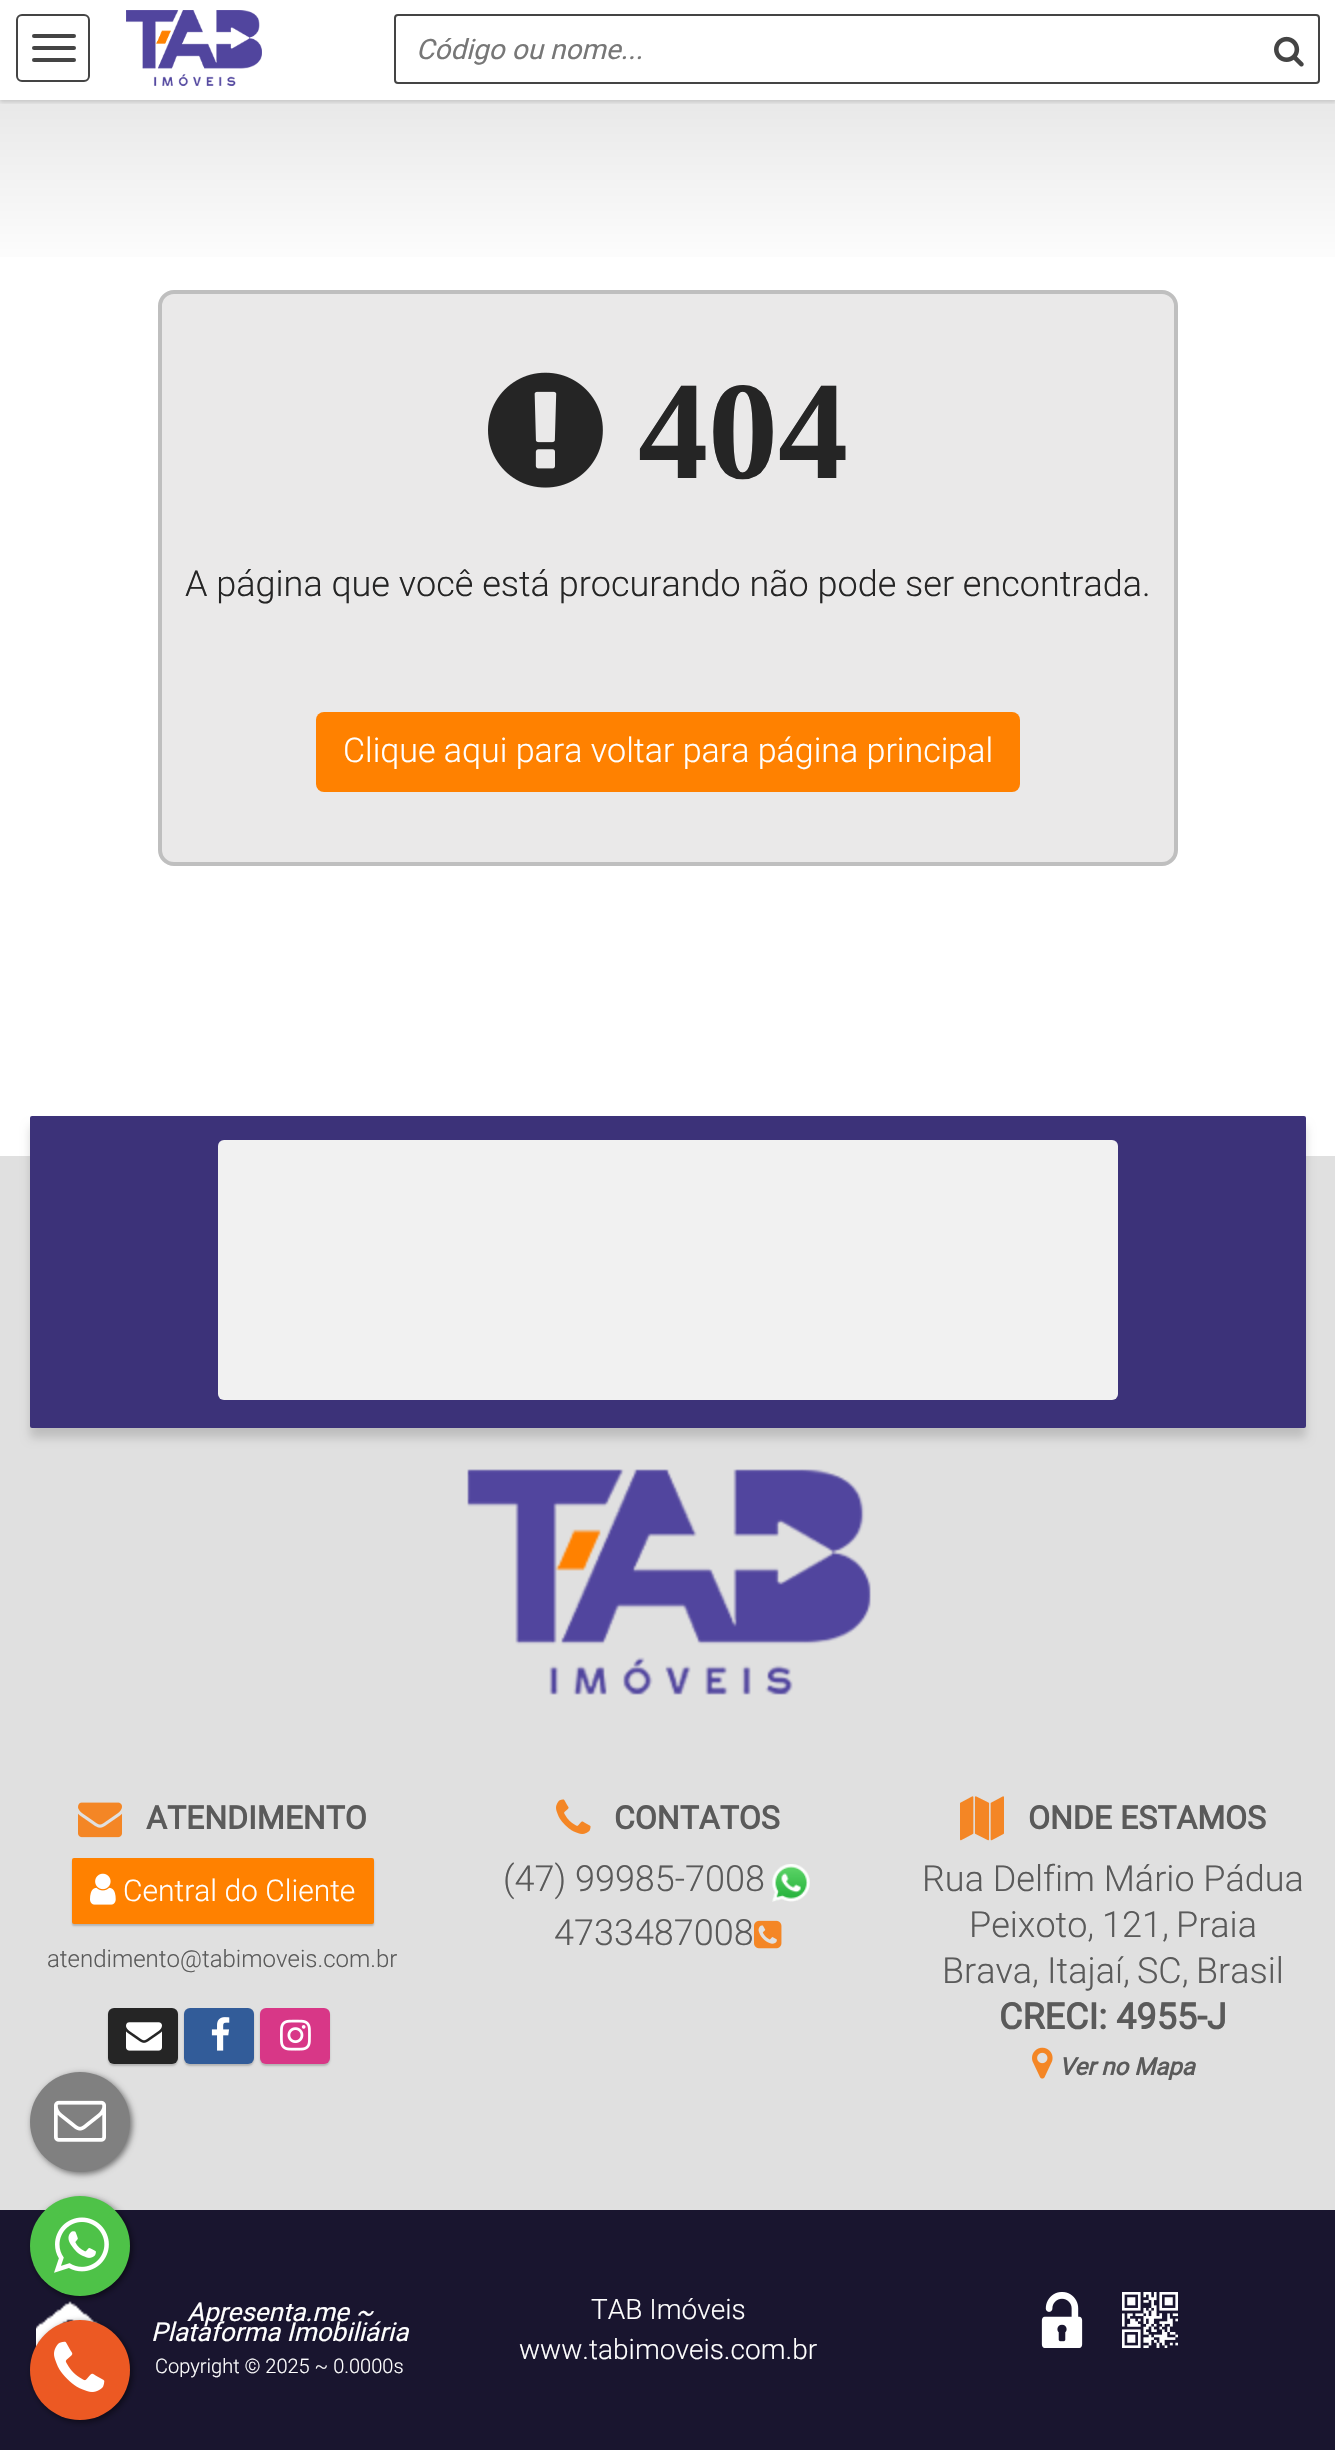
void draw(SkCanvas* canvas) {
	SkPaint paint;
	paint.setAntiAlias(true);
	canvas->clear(0xffffffff);
	{
		const SkColor colors[] = {0xffe8e8e8, 0xffffffff};
		const float stops[] = {0, 0.8};
		const SkPoint ends[] = {{668, 100}, {668, 320}};
		paint.setShader(SkGradientShader::MakeLinear(ends, colors, stops, 2, SkTileMode::kClamp));
		paint.setAlpha(255);
	}
	canvas->drawRect(SkRect::MakeXYWH(0, 100, 1335, 157), paint);
	canvas->save();
	canvas->clipRect(SkRect::MakeXYWH(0, 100, 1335, 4));
	paint.setShader(nullptr);
	paint.setColor(0x26000000);
	paint.setMaskFilter(SkMaskFilter::MakeBlur(kNormal_SkBlurStyle, 2));
	canvas->drawRect(SkRect::MakeXYWH(0, -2, 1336, 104), paint);
	paint.setMaskFilter(nullptr);
	canvas->restore();
	paint.setStroke(true);
	paint.setStrokeWidth(2);
	paint.setColor(0xff444444);
	canvas->drawRoundRect(SkRect::MakeXYWH(17, 15, 72, 66), 5, 5, paint);
	paint.setStroke(false);
	canvas->drawRoundRect(SkRect::MakeXYWH(32, 34, 44, 4), 2, 2, paint);
	canvas->drawRoundRect(SkRect::MakeXYWH(32, 46, 44, 4), 2, 2, paint);
	canvas->drawRoundRect(SkRect::MakeXYWH(32, 58, 44, 4), 2, 2, paint);
	canvas->drawImageRect(SkImages::DeferredFromEncodedData(SkData::MakeFromFileName("img1.png")), SkRect::MakeXYWH(126, 10, 136, 76), SkSamplingOptions());
	paint.setStroke(true);
	canvas->drawRoundRect(SkRect::MakeXYWH(395, 15, 924, 68), 3, 3, paint);
	SkFont f1(fontMgr->matchFamilyStyle("Roboto", SkFontStyle::Italic()), 28);
	f1.setSubpixel(true);
	paint.setStroke(false);
	paint.setColor(0xff777777);
	canvas->drawString("Código ou nome...", 416, 59, f1, paint);
	canvas->drawImageRect(SkImages::DeferredFromEncodedData(SkData::MakeFromFileName("img2.png")), SkRect::MakeXYWH(1274, 36, 30, 31), SkSamplingOptions());
	paint.setColor(0xffeae9e9);
	canvas->drawRoundRect(SkRect::MakeXYWH(160, 292, 1016, 572), 14, 14, paint);
	paint.setStroke(true);
	paint.setStrokeWidth(4);
	paint.setColor(0xffbfbfbf);
	canvas->drawRoundRect(SkRect::MakeXYWH(160, 292, 1016, 572), 14, 14, paint);
	canvas->drawImageRect(SkImages::DeferredFromEncodedData(SkData::MakeFromFileName("img3.png")), SkRect::MakeXYWH(488, 372, 115, 116), SkSamplingOptions());
	SkFont f2(fontMgr->matchFamilyStyle("Liberation Serif", SkFontStyle::Bold()), 140);
	f2.setSubpixel(true);
	paint.setStroke(false);
	paint.setColor(0xff252525);
	canvas->drawString("404", 638, 478, f2, paint);
	SkFont f3(fontMgr->matchFamilyStyle("Roboto", SkFontStyle(300, SkFontStyle::kNormal_Width, SkFontStyle::kUpright_Slant)), 36);
	f3.setSubpixel(true);
	canvas->drawString("A página que você está procurando não pode ser encontrada.", 185, 596, f3, paint);
	paint.setColor(0xffff8100);
	canvas->drawRoundRect(SkRect::MakeXYWH(316, 712, 704, 80), 8, 8, paint);
	SkFont f4(fontMgr->matchFamilyStyle("Roboto", SkFontStyle(300, SkFontStyle::kNormal_Width, SkFontStyle::kUpright_Slant)), 34);
	f4.setSubpixel(true);
	paint.setColor(0xffffffff);
	canvas->drawString("Clique aqui para voltar para página principal", 343, 762, f4, paint);
	paint.setColor(0xffe0e0e0);
	canvas->drawRect(SkRect::MakeXYWH(0, 1156, 1335, 1054), paint);
	paint.setColor(0x87000000);
	paint.setMaskFilter(SkMaskFilter::MakeBlur(kNormal_SkBlurStyle, 3));
	canvas->drawRoundRect(SkRect::MakeXYWH(32, 2074, 100, 100), 50, 50, paint);
	paint.setMaskFilter(nullptr);
	paint.setColor(0xff808080);
	canvas->drawCircle(80, 2122, 50, paint);
	canvas->drawImageRect(SkImages::DeferredFromEncodedData(SkData::MakeFromFileName("img4.png")), SkRect::MakeXYWH(54, 2100, 52, 42), SkSamplingOptions());
	paint.setColor(0xff19152f);
	canvas->drawRect(SkRect::MakeXYWH(0, 2210, 1335, 240), paint);
	canvas->drawImageRect(SkImages::DeferredFromEncodedData(SkData::MakeFromFileName("img18.png")), SkRect::MakeXYWH(36, 2301, 66, 46), SkSamplingOptions());
	paint.setColor(0x87000000);
	paint.setMaskFilter(SkMaskFilter::MakeBlur(kNormal_SkBlurStyle, 3));
	canvas->drawRoundRect(SkRect::MakeXYWH(32, 2198, 100, 100), 50, 50, paint);
	paint.setMaskFilter(nullptr);
	paint.setColor(0xff4ec248);
	canvas->drawCircle(80, 2246, 50, paint);
	canvas->drawImageRect(SkImages::DeferredFromEncodedData(SkData::MakeFromFileName("img5.png")), SkRect::MakeXYWH(54, 2217, 55, 56), SkSamplingOptions());
	paint.setColor(0x87000000);
	paint.setMaskFilter(SkMaskFilter::MakeBlur(kNormal_SkBlurStyle, 3));
	canvas->drawRoundRect(SkRect::MakeXYWH(32, 2322, 100, 100), 50, 50, paint);
	paint.setMaskFilter(nullptr);
	paint.setColor(0xffec5923);
	canvas->drawCircle(80, 2370, 50, paint);
	canvas->drawImageRect(SkImages::DeferredFromEncodedData(SkData::MakeFromFileName("img6.png")), SkRect::MakeXYWH(54, 2341, 51, 51), SkSamplingOptions());
	paint.setColor(0x26010101);
	paint.setMaskFilter(SkMaskFilter::MakeBlur(kNormal_SkBlurStyle, 5));
	canvas->drawRoundRect(SkRect::MakeXYWH(30, 1126, 1276, 312), 2, 2, paint);
	paint.setMaskFilter(nullptr);
	paint.setColor(0xff3c3279);
	canvas->drawRoundRect(SkRect::MakeXYWH(30, 1116, 1276, 312), 2, 2, paint);
	paint.setColor(0xfff1f1f1);
	canvas->drawRoundRect(SkRect::MakeXYWH(218, 1140, 900, 260), 6, 6, paint);
	canvas->drawImageRect(SkImages::DeferredFromEncodedData(SkData::MakeFromFileName("img7.png")), SkRect::MakeXYWH(467, 1469, 404, 226), SkSamplingOptions());
	canvas->drawImageRect(SkImages::DeferredFromEncodedData(SkData::MakeFromFileName("img8.png")), SkRect::MakeXYWH(78, 1802, 44, 36), SkSamplingOptions());
	SkFont f5(fontMgr->matchFamilyStyle("Roboto", SkFontStyle::Bold()), 32);
	f5.setSubpixel(true);
	paint.setColor(0xff5a5a5a);
	canvas->drawString("ATENDIMENTO", 146, 1829, f5, paint);
	paint.setColor(0x33000000);
	paint.setMaskFilter(SkMaskFilter::MakeBlur(kNormal_SkBlurStyle, 1));
	canvas->drawRoundRect(SkRect::MakeXYWH(72, 1860, 302, 66), 2, 2, paint);
	paint.setMaskFilter(nullptr);
	paint.setColor(0xffff8100);
	canvas->drawRoundRect(SkRect::MakeXYWH(72, 1858, 302, 66), 2, 2, paint);
	canvas->drawImageRect(SkImages::DeferredFromEncodedData(SkData::MakeFromFileName("img9.png")), SkRect::MakeXYWH(90, 1873, 26, 32), SkSamplingOptions());
	SkFont f6(fontMgr->matchFamilyStyle("Roboto", SkFontStyle(300, SkFontStyle::kNormal_Width, SkFontStyle::kUpright_Slant)), 30);
	f6.setSubpixel(true);
	paint.setColor(0xffffffff);
	canvas->drawString("Central do Cliente", 123, 1901, f6, paint);
	SkFont f7(fontMgr->matchFamilyStyle("Roboto", SkFontStyle(300, SkFontStyle::kNormal_Width, SkFontStyle::kUpright_Slant)), 24);
	f7.setSubpixel(true);
	paint.setColor(0xff5a5a5a);
	canvas->drawString("atendimento@tabimoveis.com.br", 47, 1967, f7, paint);
	paint.setColor(0x33000000);
	paint.setMaskFilter(SkMaskFilter::MakeBlur(kNormal_SkBlurStyle, 1));
	canvas->drawRoundRect(SkRect::MakeXYWH(108, 2010, 70, 56), 6, 6, paint);
	paint.setMaskFilter(nullptr);
	paint.setColor(0xff252525);
	canvas->drawRoundRect(SkRect::MakeXYWH(108, 2008, 70, 56), 6, 6, paint);
	canvas->drawImageRect(SkImages::DeferredFromEncodedData(SkData::MakeFromFileName("img10.png")), SkRect::MakeXYWH(126, 2022, 36, 29), SkSamplingOptions());
	paint.setColor(0x33000000);
	paint.setMaskFilter(SkMaskFilter::MakeBlur(kNormal_SkBlurStyle, 1));
	canvas->drawRoundRect(SkRect::MakeXYWH(184, 2010, 70, 56), 6, 6, paint);
	paint.setMaskFilter(nullptr);
	paint.setColor(0xff325c99);
	canvas->drawRoundRect(SkRect::MakeXYWH(184, 2008, 70, 56), 6, 6, paint);
	canvas->drawImageRect(SkImages::DeferredFromEncodedData(SkData::MakeFromFileName("img11.png")), SkRect::MakeXYWH(211, 2017, 19, 34), SkSamplingOptions());
	paint.setColor(0x33000000);
	paint.setMaskFilter(SkMaskFilter::MakeBlur(kNormal_SkBlurStyle, 1));
	canvas->drawRoundRect(SkRect::MakeXYWH(260, 2010, 70, 56), 6, 6, paint);
	paint.setMaskFilter(nullptr);
	paint.setColor(0xffd83787);
	canvas->drawRoundRect(SkRect::MakeXYWH(260, 2008, 70, 56), 6, 6, paint);
	canvas->drawImageRect(SkImages::DeferredFromEncodedData(SkData::MakeFromFileName("img12.png")), SkRect::MakeXYWH(280, 2019, 31, 32), SkSamplingOptions());
	canvas->drawImageRect(SkImages::DeferredFromEncodedData(SkData::MakeFromFileName("img13.png")), SkRect::MakeXYWH(556, 1799, 35, 35), SkSamplingOptions());
	paint.setColor(0xff5a5a5a);
	canvas->drawString("CONTATOS", 614, 1829, f5, paint);
	canvas->drawString("(47) 99985-7008", 503, 1891, f3, paint);
	canvas->drawImageRect(SkImages::DeferredFromEncodedData(SkData::MakeFromFileName("img14.png")), SkRect::MakeXYWH(772, 1864, 38, 38), SkSamplingOptions());
	canvas->drawString("4733487008", 554, 1945, f3, paint);
	canvas->drawImageRect(SkImages::DeferredFromEncodedData(SkData::MakeFromFileName("img15.png")), SkRect::MakeXYWH(754, 1920, 28, 29), SkSamplingOptions());
	canvas->drawImageRect(SkImages::DeferredFromEncodedData(SkData::MakeFromFileName("img16.png")), SkRect::MakeXYWH(960, 1796, 44, 45), SkSamplingOptions());
	canvas->drawString("ONDE ESTAMOS", 1028, 1829, f5, paint);
	canvas->drawString("Rua Delfim Mário Pádua", 922, 1891, f3, paint);
	canvas->drawString("Peixoto,", 969, 1937, f3, paint);
	canvas->drawString("121,", 1102, 1937, f3, paint);
	canvas->drawString("Praia", 1176, 1937, f3, paint);
	canvas->drawString("Brava,", 942, 1983, f3, paint);
	canvas->drawString("Itajaí,", 1047, 1983, f3, paint);
	canvas->drawString("SC,", 1137, 1983, f3, paint);
	canvas->drawString("Brasil", 1196, 1983, f3, paint);
	SkFont f8(fontMgr->matchFamilyStyle("Roboto", SkFontStyle::Bold()), 36);
	f8.setSubpixel(true);
	canvas->drawString("CRECI: 4955-J", 999, 2029, f8, paint);
	canvas->drawImageRect(SkImages::DeferredFromEncodedData(SkData::MakeFromFileName("img17.png")), SkRect::MakeXYWH(1032, 2047, 21, 32), SkSamplingOptions());
	SkFont f9(fontMgr->matchFamilyStyle("Roboto", SkFontStyle::BoldItalic()), 24);
	f9.setSubpixel(true);
	canvas->drawString("Ver no Mapa", 1059, 2075, f9, paint);
	SkFont f10(fontMgr->matchFamilyStyle("Roboto", SkFontStyle::Italic()), 26);
	f10.setSubpixel(true);
	paint.setColor(0xffffffff);
	canvas->drawString("Apresenta.me ~", 187, 2321, f10, paint);
	canvas->drawString("Plataforma Imobiliária", 151, 2341, f10, paint);
	SkFont f11(fontMgr->matchFamilyStyle("Roboto", SkFontStyle(300, SkFontStyle::kNormal_Width, SkFontStyle::kUpright_Slant)), 20);
	f11.setSubpixel(true);
	canvas->drawString("Copyright © 2025 ~ 0.0000s", 155, 2373, f11, paint);
	SkFont f12(fontMgr->matchFamilyStyle("Roboto", SkFontStyle(300, SkFontStyle::kNormal_Width, SkFontStyle::kUpright_Slant)), 28);
	f12.setSubpixel(true);
	canvas->drawString("TAB Imóveis", 591, 2319, f12, paint);
	canvas->drawString("www.tabimoveis.com.br", 519, 2359, f12, paint);
	canvas->drawImageRect(SkImages::DeferredFromEncodedData(SkData::MakeFromFileName("img19.png")), SkRect::MakeXYWH(1041, 2292, 42, 56), SkSamplingOptions());
	canvas->drawImageRect(SkImages::DeferredFromEncodedData(SkData::MakeFromFileName("img20.png")), SkRect::MakeXYWH(1122, 2292, 56, 56), SkSamplingOptions());
}
